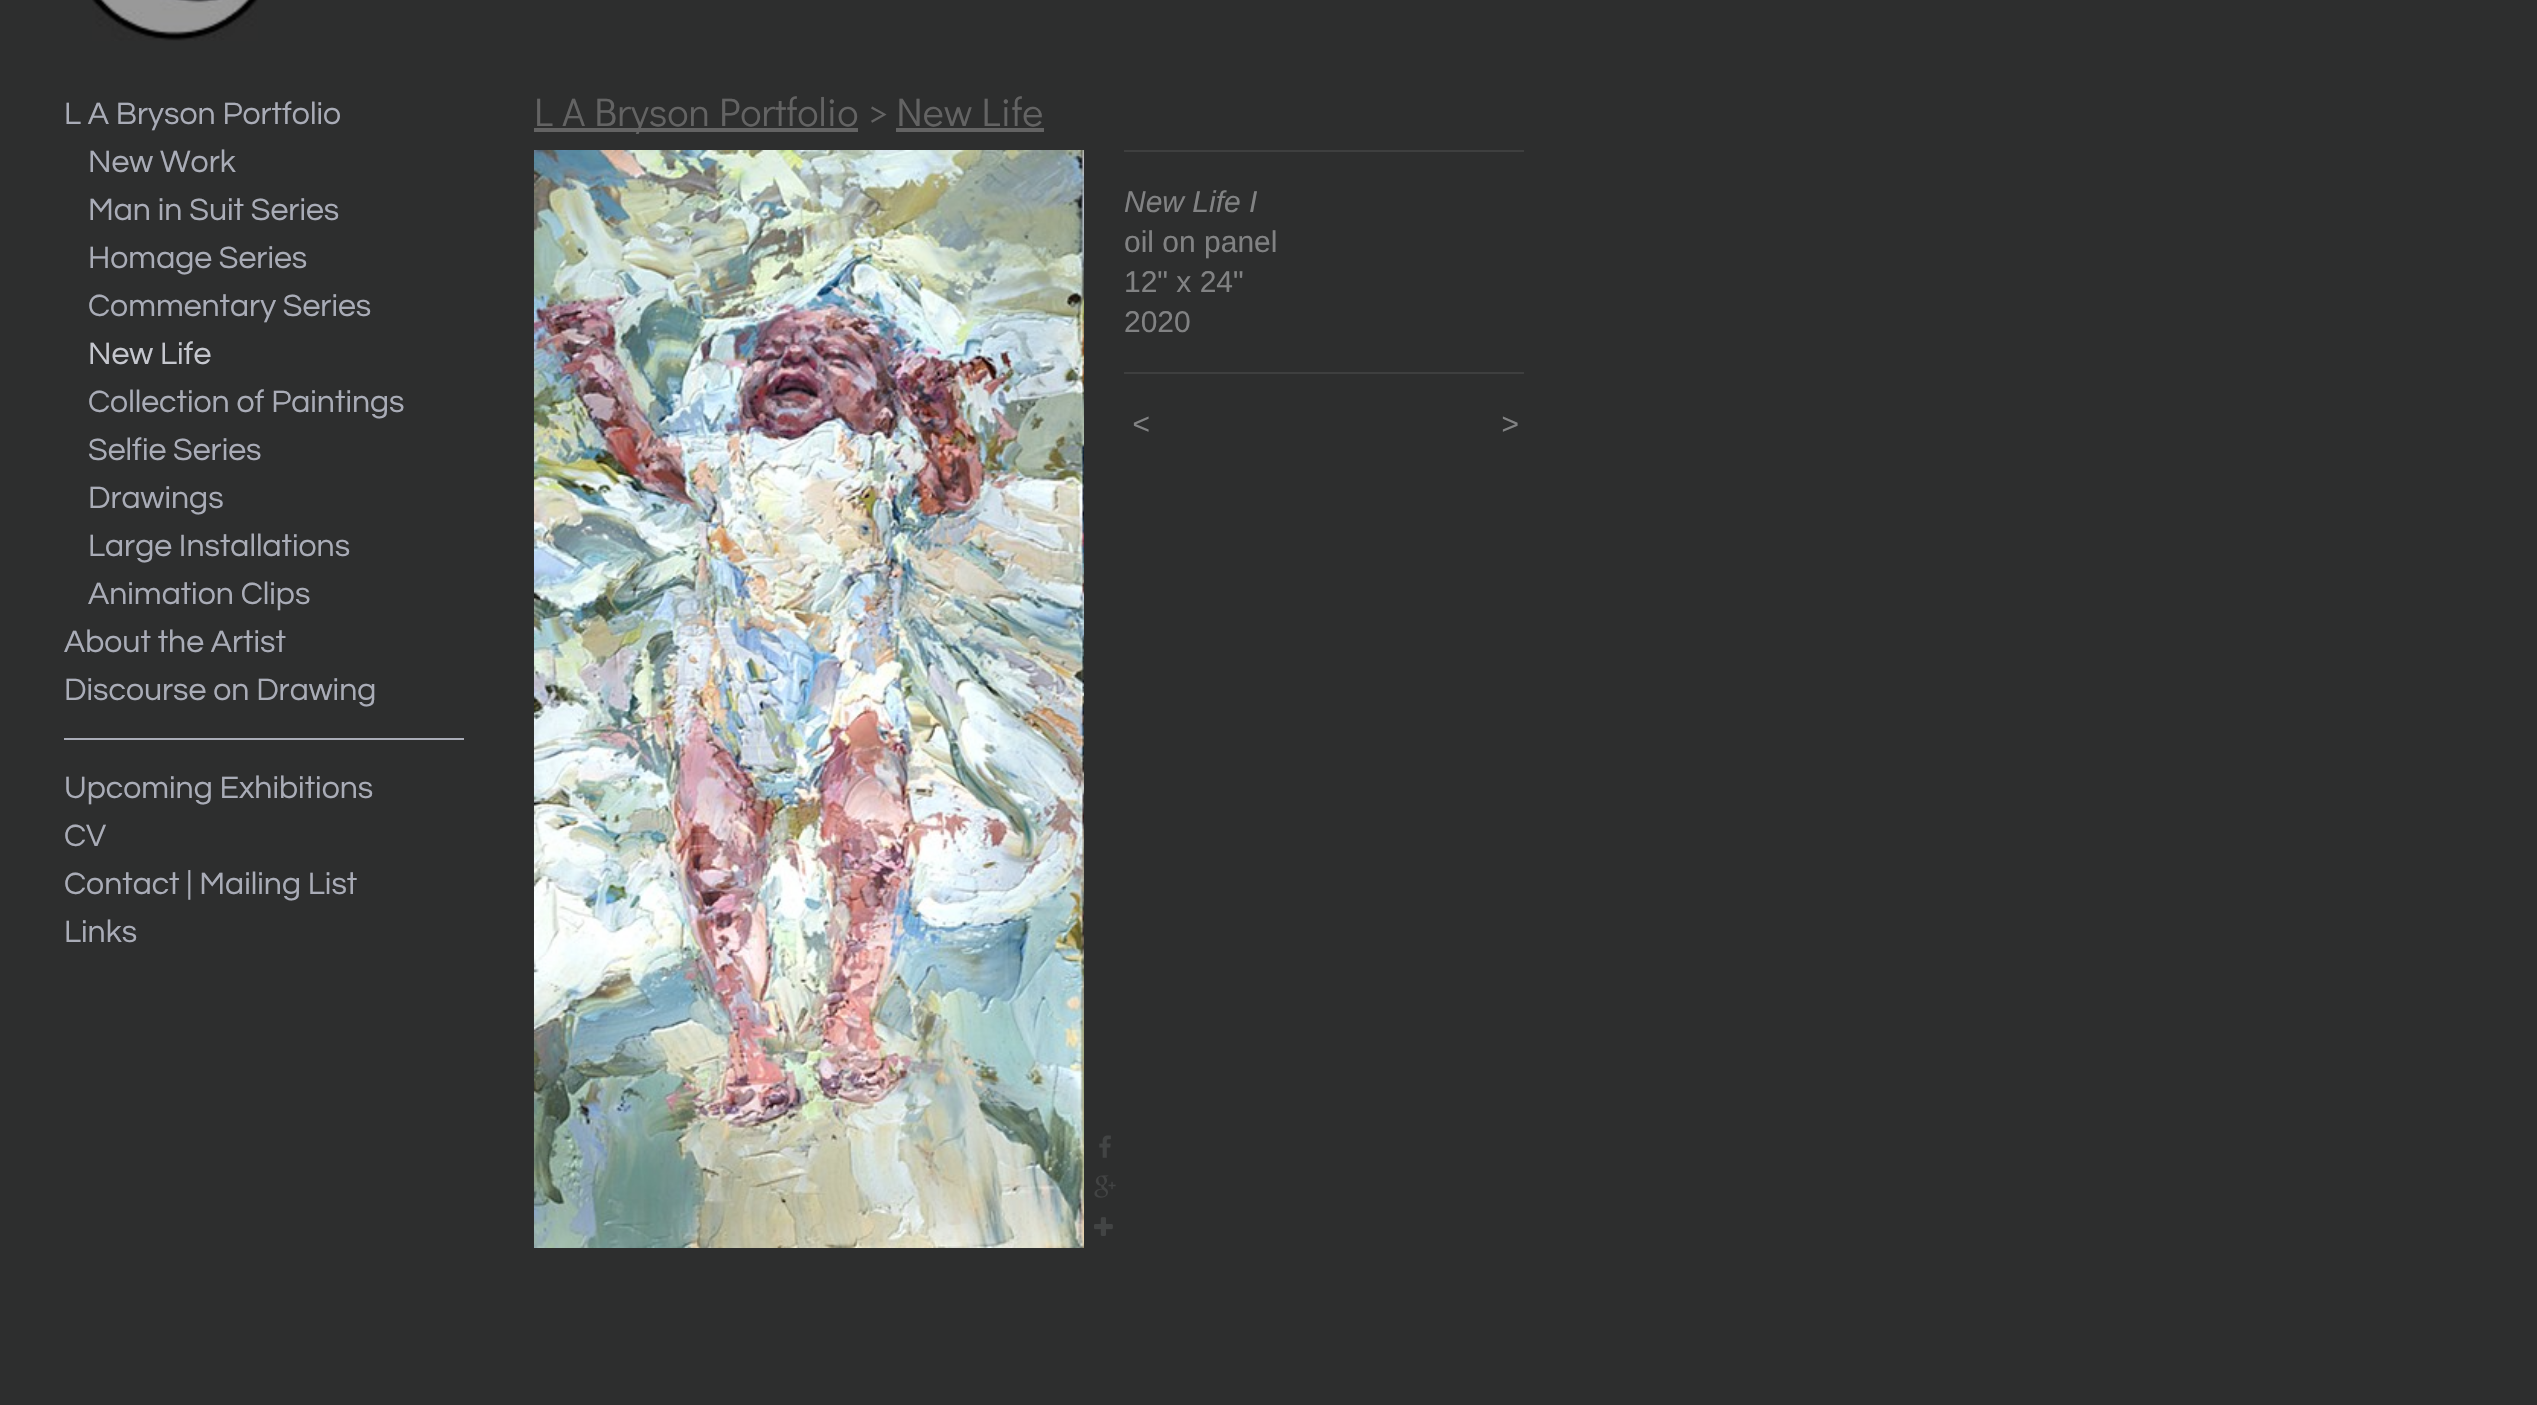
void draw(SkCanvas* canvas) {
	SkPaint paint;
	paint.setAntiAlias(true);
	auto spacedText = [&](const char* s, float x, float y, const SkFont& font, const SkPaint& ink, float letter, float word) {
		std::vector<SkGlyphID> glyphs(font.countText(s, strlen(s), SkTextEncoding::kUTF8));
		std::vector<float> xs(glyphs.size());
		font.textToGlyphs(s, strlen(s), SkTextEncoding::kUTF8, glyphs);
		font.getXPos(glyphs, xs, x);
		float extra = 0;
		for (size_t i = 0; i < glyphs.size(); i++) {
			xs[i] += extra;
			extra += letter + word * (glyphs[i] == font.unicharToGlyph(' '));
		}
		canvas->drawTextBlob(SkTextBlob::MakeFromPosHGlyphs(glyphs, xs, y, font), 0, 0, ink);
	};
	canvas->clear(0xff2d2e2e);
	canvas->drawImageRect(SkImages::DeferredFromEncodedData(SkData::MakeFromFileName("img1.png")), SkRect::MakeXYWH(92, 0, 166, 41), SkSamplingOptions());
	SkFont f1(fontMgr->matchFamilyStyle("Questrial", SkFontStyle::Normal()), 32);
	f1.setSubpixel(true);
	paint.setColor(0xffa9acb7);
	canvas->drawString("L A Bryson Portfolio", 64, 124, f1, paint);
	canvas->drawString("New Work", 88, 172, f1, paint);
	canvas->drawString("Man in Suit Series", 88, 220, f1, paint);
	canvas->drawString("Homage Series", 88, 268, f1, paint);
	canvas->drawString("Commentary Series", 88, 316, f1, paint);
	paint.setColor(0xffc5c7ce);
	canvas->drawString("New Life", 88, 364, f1, paint);
	paint.setColor(0xffa9acb7);
	canvas->drawString("Collection of Paintings", 88, 412, f1, paint);
	canvas->drawString("Selfie Series", 88, 460, f1, paint);
	canvas->drawString("Drawings", 88, 508, f1, paint);
	canvas->drawString("Large Installations", 88, 556, f1, paint);
	canvas->drawString("Animation Clips", 88, 604, f1, paint);
	canvas->drawString("About the Artist", 64, 652, f1, paint);
	canvas->drawString("Discourse on Drawing", 64, 700, f1, paint);
	canvas->drawRect(SkRect::MakeXYWH(64, 738, 400, 2), paint);
	canvas->drawString("Upcoming Exhibitions", 64, 798, f1, paint);
	canvas->drawString("CV", 64, 846, f1, paint);
	canvas->drawString("Contact | Mailing List", 64, 894, f1, paint);
	canvas->drawString("Links", 64, 942, f1, paint);
	paint.setColor(0xff636363);
	canvas->drawRect(SkRect::MakeXYWH(534, 128, 324, 4), paint);
	SkFont f2(fontMgr->matchFamilyStyle("Didact Gothic", SkFontStyle::Normal()), 40);
	f2.setSubpixel(true);
	canvas->drawString("L A Bryson Portfolio > New Life", 534, 126, f2, paint);
	canvas->drawRect(SkRect::MakeXYWH(896, 128, 148, 4), paint);
	canvas->drawImageRect(SkImages::DeferredFromEncodedData(SkData::MakeFromFileName("img2.png")), SkRect::MakeXYWH(534, 150, 550, 1098), SkSamplingOptions());
	canvas->drawImageRect(SkImages::DeferredFromEncodedData(SkData::MakeFromFileName("img3.png")), SkRect::MakeXYWH(1099, 1135, 12, 23), SkSamplingOptions());
	canvas->drawImageRect(SkImages::DeferredFromEncodedData(SkData::MakeFromFileName("img4.png")), SkRect::MakeXYWH(1094, 1175, 22, 23), SkSamplingOptions());
	canvas->drawImageRect(SkImages::DeferredFromEncodedData(SkData::MakeFromFileName("img5.png")), SkRect::MakeXYWH(1094, 1217, 19, 19), SkSamplingOptions());
	paint.setColor(0xff3e3f3f);
	canvas->drawRect(SkRect::MakeXYWH(1124, 150, 400, 2), paint);
	SkFont f3(fontMgr->matchFamilyStyle("Liberation Sans", SkFontStyle::Italic()), 30);
	f3.setSubpixel(true);
	paint.setColor(0xff818283);
	canvas->drawString("New Life I", 1124, 212, f3, paint);
	SkFont f4(fontMgr->matchFamilyStyle("Liberation Sans", SkFontStyle::Normal()), 30);
	f4.setSubpixel(true);
	canvas->drawString("oil on panel", 1124, 252, f4, paint);
	canvas->drawString("12\" x 24\"", 1124, 292, f4, paint);
	canvas->drawString("2020", 1124, 332, f4, paint);
	paint.setColor(0xff3e3f3f);
	canvas->drawRect(SkRect::MakeXYWH(1124, 372, 400, 2), paint);
	paint.setColor(0xff818283);
	spacedText("<", 1132, 434, f3, paint, 2, 0);
	spacedText(">", 1501, 434, f3, paint, 2, 0);
}
